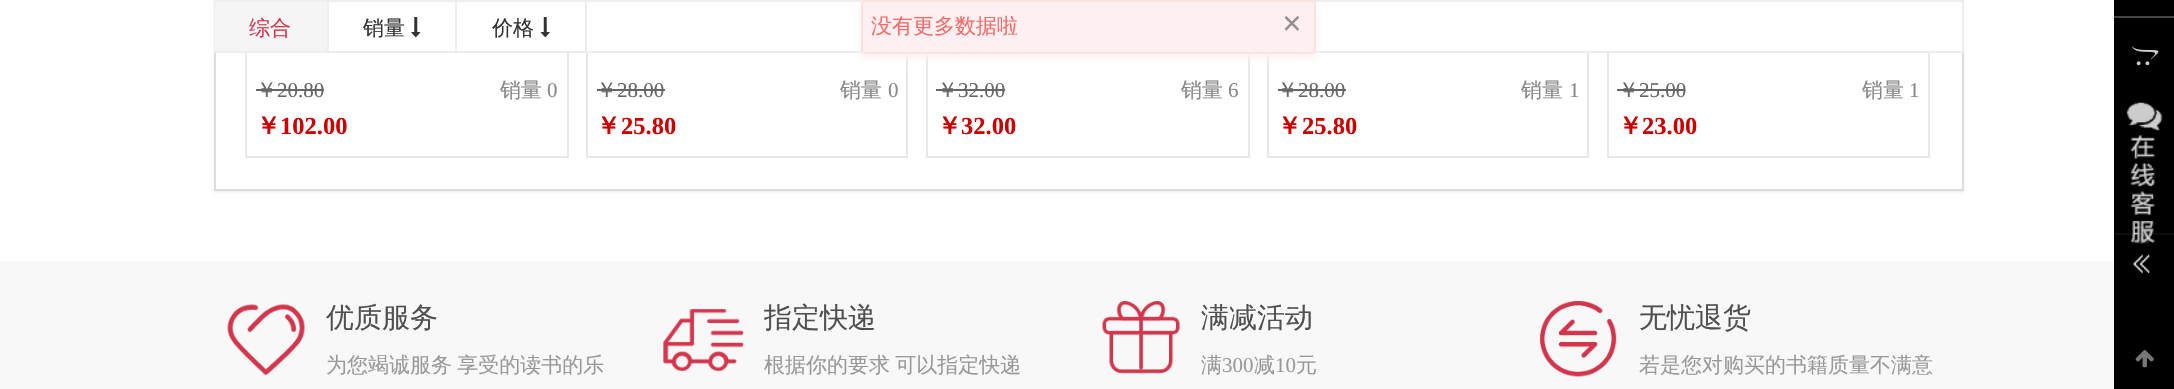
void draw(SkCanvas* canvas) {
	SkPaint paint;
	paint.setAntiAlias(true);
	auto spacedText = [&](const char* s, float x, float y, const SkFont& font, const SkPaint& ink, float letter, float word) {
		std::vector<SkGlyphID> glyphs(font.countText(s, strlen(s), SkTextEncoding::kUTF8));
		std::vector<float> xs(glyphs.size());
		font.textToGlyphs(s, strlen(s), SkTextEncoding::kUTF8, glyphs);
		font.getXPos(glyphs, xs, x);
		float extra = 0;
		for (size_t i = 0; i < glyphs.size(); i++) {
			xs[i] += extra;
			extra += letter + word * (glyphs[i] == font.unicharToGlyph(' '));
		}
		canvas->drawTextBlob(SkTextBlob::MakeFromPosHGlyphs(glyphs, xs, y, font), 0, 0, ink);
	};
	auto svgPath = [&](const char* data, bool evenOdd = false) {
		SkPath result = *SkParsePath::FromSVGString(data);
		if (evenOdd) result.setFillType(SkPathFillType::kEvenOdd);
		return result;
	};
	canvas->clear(0xffffffff);
	paint.setColor(0x0d000000);
	paint.setMaskFilter(SkMaskFilter::MakeBlur(kNormal_SkBlurStyle, 1));
	canvas->drawRect(SkRect::MakeXYWH(214, -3, 1750, 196), paint);
	paint.setMaskFilter(nullptr);
	paint.setColor(0xffffffff);
	canvas->drawRect(SkRect::MakeXYWH(216, 53, 1746, 136), paint);
	paint.setStroke(true);
	paint.setStrokeWidth(2);
	paint.setColor(0xffdddddd);
	canvas->drawRect(SkRect::MakeXYWH(215, -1, 1748, 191), paint);
	paint.setColor(0xffe8e8e8);
	canvas->drawRect(SkRect::MakeXYWH(246, -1, 322, 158), paint);
	canvas->drawRect(SkRect::MakeXYWH(587, -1, 320, 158), paint);
	canvas->drawRect(SkRect::MakeXYWH(927, -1, 322, 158), paint);
	canvas->drawRect(SkRect::MakeXYWH(1268, -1, 320, 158), paint);
	canvas->drawRect(SkRect::MakeXYWH(1608, -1, 321, 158), paint);
	paint.setStroke(false);
	paint.setColor(0xffffffff);
	canvas->drawRect(SkRect::MakeXYWH(329, 2, 1633, 49), paint);
	paint.setStroke(true);
	paint.setColor(0xffeeeeee);
	canvas->drawRect(SkRect::MakeXYWH(215, 1, 1748, 51), paint);
	paint.setStroke(false);
	paint.setColor(0xfffef1f1);
	paint.setMaskFilter(SkMaskFilter::MakeBlur(kNormal_SkBlurStyle, 3.5));
	canvas->drawRoundRect(SkRect::MakeXYWH(861, 4, 455, 54), 4, 4, paint);
	paint.setMaskFilter(nullptr);
	paint.setColor(0xfffef0f0);
	canvas->drawRoundRect(SkRect::MakeXYWH(862, 1, 453, 52), 3, 3, paint);
	paint.setStroke(true);
	paint.setColor(0xfffde2e2);
	canvas->drawRoundRect(SkRect::MakeXYWH(862, 1, 453, 52), 3, 3, paint);
	SkFont f1(fontMgr->matchFamilyStyle("WenQuanYi Zen Hei", SkFontStyle(500, SkFontStyle::kNormal_Width, SkFontStyle::kUpright_Slant)), 21);
	f1.setSubpixel(true);
	paint.setStroke(false);
	paint.setColor(0xfff56c6c);
	canvas->drawString("没有更多数据啦", 871, 33, f1, paint);
	SkFont f2(fontMgr->matchFamilyStyle("Liberation Serif", SkFontStyle::Bold()), 35);
	f2.setSubpixel(true);
	paint.setColor(0xff989090);
	canvas->drawString("×", 1282, 35, f2, paint);
	paint.setColor(0xff000000);
	canvas->drawRect(SkRect::MakeXYWH(2114, 0, 60, 389), paint);
	paint.setColor(0xff444444);
	canvas->drawRect(SkRect::MakeXYWH(2114, 16, 60, 2), paint);
	canvas->drawRect(SkRect::MakeXYWH(2114, 233, 60, 2), paint);
	canvas->drawImageRect(SkImages::DeferredFromEncodedData(SkData::MakeFromFileName("img1.png")), SkRect::MakeXYWH(2131, 46, 28, 20), SkSamplingOptions());
	canvas->drawImageRect(SkImages::DeferredFromEncodedData(SkData::MakeFromFileName("img2.png")), SkRect::MakeXYWH(2133, 226, 22, 18), SkSamplingOptions());
	canvas->drawImageRect(SkImages::DeferredFromEncodedData(SkData::MakeFromFileName("img3.png")), SkRect::MakeXYWH(2135, 350, 19, 18), SkSamplingOptions());
	paint.setColor(0xfff5f5f5);
	canvas->drawRect(SkRect::MakeXYWH(215, 2, 112, 49), paint);
	paint.setColor(0xffeeeeee);
	canvas->drawRect(SkRect::MakeXYWH(327, 2, 2, 49), paint);
	paint.setColor(0xffd2364c);
	canvas->drawString("综合", 249, 35, f1, paint);
	paint.setColor(0xffeeeeee);
	canvas->drawRect(SkRect::MakeXYWH(455, 2, 2, 49), paint);
	paint.setColor(0xff333333);
	canvas->drawString("销量", 363, 35, f1, paint);
	canvas->drawImageRect(SkImages::DeferredFromEncodedData(SkData::MakeFromFileName("img4.png")), SkRect::MakeXYWH(411, 17, 10, 21), SkSamplingOptions());
	paint.setColor(0xffeeeeee);
	canvas->drawRect(SkRect::MakeXYWH(585, 2, 2, 49), paint);
	paint.setColor(0xff333333);
	canvas->drawString("价格", 492, 35, f1, paint);
	canvas->drawImageRect(SkImages::DeferredFromEncodedData(SkData::MakeFromFileName("img5.png")), SkRect::MakeXYWH(540, 17, 10, 21), SkSamplingOptions());
	paint.setColor(0xff666666);
	canvas->drawString("￥", 256, 97, f1, paint);
	canvas->drawRect(SkRect::MakeXYWH(256, 89, 68, 2), paint);
	SkFont f3(fontMgr->matchFamilyStyle("Liberation Serif", SkFontStyle::Normal()), 21);
	f3.setSubpixel(true);
	canvas->drawString("20.80", 277, 97, f3, paint);
	paint.setColor(0xff888888);
	canvas->drawString("销量", 500, 97, f1, paint);
	canvas->drawString("0", 547, 97, f3, paint);
	SkFont f4(fontMgr->matchFamilyStyle("WenQuanYi Zen Hei", SkFontStyle::Bold()), 24.5);
	f4.setSubpixel(true);
	paint.setColor(0xffcc0000);
	canvas->drawString("￥", 256, 134, f4, paint);
	SkFont f5(fontMgr->matchFamilyStyle("Liberation Serif", SkFontStyle::Bold()), 24.5);
	f5.setSubpixel(true);
	canvas->drawString("102.00", 280, 134, f5, paint);
	paint.setColor(0xff666666);
	canvas->drawString("￥", 596, 97, f1, paint);
	canvas->drawRect(SkRect::MakeXYWH(597, 89, 68, 2), paint);
	canvas->drawString("28.00", 617, 97, f3, paint);
	paint.setColor(0xff888888);
	canvas->drawString("销量", 840, 97, f1, paint);
	canvas->drawString("0", 888, 97, f3, paint);
	paint.setColor(0xffcc0000);
	canvas->drawString("￥", 596, 134, f4, paint);
	canvas->drawString("25.80", 621, 134, f5, paint);
	paint.setColor(0xff666666);
	canvas->drawString("￥", 937, 97, f1, paint);
	canvas->drawRect(SkRect::MakeXYWH(936, 89, 69, 2), paint);
	canvas->drawString("32.00", 958, 97, f3, paint);
	paint.setColor(0xff888888);
	canvas->drawString("销量", 1181, 97, f1, paint);
	canvas->drawString("6", 1228, 97, f3, paint);
	paint.setColor(0xffcc0000);
	canvas->drawString("￥", 937, 134, f4, paint);
	canvas->drawString("32.00", 961, 134, f5, paint);
	paint.setColor(0xff666666);
	canvas->drawString("￥", 1277, 97, f1, paint);
	canvas->drawRect(SkRect::MakeXYWH(1278, 89, 68, 2), paint);
	canvas->drawString("28.00", 1298, 97, f3, paint);
	paint.setColor(0xff888888);
	canvas->drawString("销量", 1521, 97, f1, paint);
	canvas->drawString("1", 1569, 97, f3, paint);
	paint.setColor(0xffcc0000);
	canvas->drawString("￥", 1277, 134, f4, paint);
	canvas->drawString("25.80", 1302, 134, f5, paint);
	paint.setColor(0xff666666);
	canvas->drawString("￥", 1618, 97, f1, paint);
	canvas->drawRect(SkRect::MakeXYWH(1617, 89, 68, 2), paint);
	canvas->drawString("25.00", 1639, 97, f3, paint);
	paint.setColor(0xff888888);
	canvas->drawString("销量", 1862, 97, f1, paint);
	canvas->drawString("1", 1909, 97, f3, paint);
	paint.setColor(0xffcc0000);
	canvas->drawString("￥", 1618, 134, f4, paint);
	canvas->drawString("23.00", 1642, 134, f5, paint);
	paint.setColor(0xcc000000);
	canvas->drawPath(svgPath("M2123 79H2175V289H2123C2118 289 2114 285 2114 280V88C2114 83 2118 79 2123 79Z"), paint);
	canvas->drawImageRect(SkImages::DeferredFromEncodedData(SkData::MakeFromFileName("img6.png")), SkRect::MakeXYWH(2126, 102, 37, 171), SkSamplingOptions());
	paint.setColor(0xfff8f8f8);
	canvas->drawRect(SkRect::MakeXYWH(0, 261, 2114, 128), paint);
	canvas->drawImageRect(SkImages::DeferredFromEncodedData(SkData::MakeFromFileName("img7.png")), SkRect::MakeXYWH(227, 304, 78, 72), SkSamplingOptions());
	SkFont f6(fontMgr->matchFamilyStyle("WenQuanYi Zen Hei", SkFontStyle(500, SkFontStyle::kNormal_Width, SkFontStyle::kUpright_Slant)), 28);
	f6.setSubpixel(true);
	paint.setColor(0xff505050);
	canvas->drawString("优质服务", 326, 327, f6, paint);
	paint.setColor(0xff999999);
	spacedText("为您竭诚服务 享受的读书的乐", 326, 372, f1, paint, 0, -1);
	canvas->drawImageRect(SkImages::DeferredFromEncodedData(SkData::MakeFromFileName("img8.png")), SkRect::MakeXYWH(663, 308, 81, 63), SkSamplingOptions());
	paint.setColor(0xff505050);
	canvas->drawString("指定快递", 764, 327, f6, paint);
	paint.setColor(0xff999999);
	spacedText("根据你的要求 可以指定快递", 764, 372, f1, paint, 0, -1);
	canvas->drawImageRect(SkImages::DeferredFromEncodedData(SkData::MakeFromFileName("img9.png")), SkRect::MakeXYWH(1102, 301, 78, 73), SkSamplingOptions());
	paint.setColor(0xff505050);
	canvas->drawString("满减活动", 1201, 327, f6, paint);
	paint.setColor(0xff999999);
	canvas->drawString("满", 1201, 372, f1, paint);
	canvas->drawString("300", 1222, 372, f3, paint);
	canvas->drawString("减", 1254, 372, f1, paint);
	canvas->drawString("10", 1275, 372, f3, paint);
	canvas->drawString("元", 1296, 372, f1, paint);
	canvas->drawImageRect(SkImages::DeferredFromEncodedData(SkData::MakeFromFileName("img10.png")), SkRect::MakeXYWH(1540, 301, 77, 76), SkSamplingOptions());
	paint.setColor(0xff505050);
	canvas->drawString("无忧退货", 1639, 327, f6, paint);
	paint.setColor(0xff999999);
	canvas->drawString("若是您对购买的书籍质量不满意", 1639, 372, f1, paint);
}
